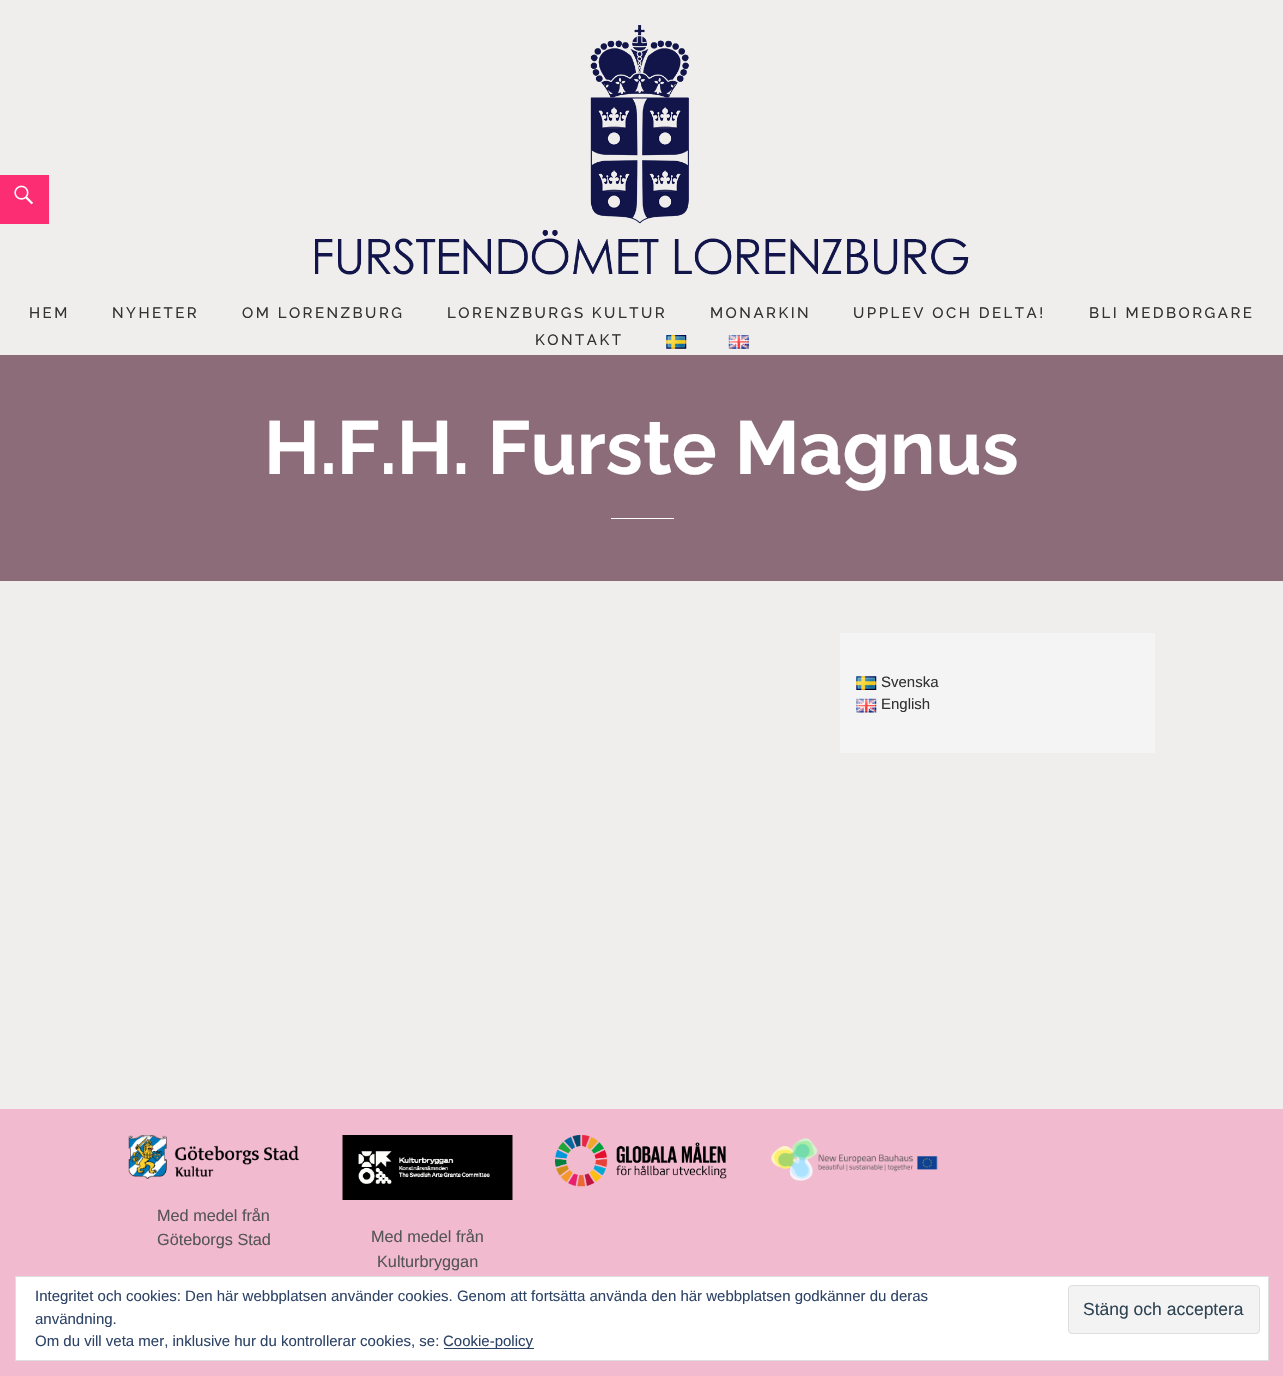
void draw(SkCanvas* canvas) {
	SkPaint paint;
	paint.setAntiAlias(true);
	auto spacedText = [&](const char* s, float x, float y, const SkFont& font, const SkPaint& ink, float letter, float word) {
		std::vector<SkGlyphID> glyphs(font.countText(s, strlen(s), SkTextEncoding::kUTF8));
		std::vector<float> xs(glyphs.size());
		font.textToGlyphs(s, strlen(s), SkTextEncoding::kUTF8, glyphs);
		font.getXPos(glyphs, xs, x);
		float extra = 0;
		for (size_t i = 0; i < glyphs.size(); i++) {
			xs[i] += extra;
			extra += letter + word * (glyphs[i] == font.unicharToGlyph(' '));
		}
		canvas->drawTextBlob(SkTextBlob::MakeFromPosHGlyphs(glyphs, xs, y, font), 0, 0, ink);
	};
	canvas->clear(0xfff0eeec);
	paint.setColor(0xfffc2d72);
	canvas->drawRect(SkRect::MakeXYWH(0, 175, 49, 49), paint);
	canvas->drawImageRect(SkImages::DeferredFromEncodedData(SkData::MakeFromFileName("img1.png")), SkRect::MakeXYWH(14, 185, 19, 20), SkSamplingOptions());
	canvas->drawImageRect(SkImages::DeferredFromEncodedData(SkData::MakeFromFileName("img2.png")), SkRect::MakeXYWH(315, 25, 654, 250), SkSamplingOptions());
	SkFont f1(fontMgr->matchFamilyStyle("Raleway", SkFontStyle(500, SkFontStyle::kNormal_Width, SkFontStyle::kUpright_Slant)), 15);
	f1.setSubpixel(true);
	paint.setColor(0xff333333);
	spacedText("HEM", 29, 318, f1, paint, 2.5, 0);
	spacedText("NYHETER", 112, 318, f1, paint, 2.5, 0);
	spacedText("OM LORENZBURG", 242, 318, f1, paint, 2.5, 0);
	spacedText("LORENZBURGS KULTUR", 447, 318, f1, paint, 2.5, 0);
	spacedText("MONARKIN", 710, 318, f1, paint, 2.5, 0);
	spacedText("UPPLEV OCH DELTA!", 853, 318, f1, paint, 2.5, 0);
	spacedText("BLI MEDBORGARE", 1089, 318, f1, paint, 2.5, 0);
	spacedText("KONTAKT", 535, 345, f1, paint, 2.5, 0);
	canvas->drawImageRect(SkImages::DeferredFromEncodedData(SkData::MakeFromFileName("img3.png")), SkRect::MakeXYWH(666, 335, 21, 14), SkSamplingOptions());
	canvas->drawImageRect(SkImages::DeferredFromEncodedData(SkData::MakeFromFileName("img4.png")), SkRect::MakeXYWH(728, 335, 21, 14), SkSamplingOptions());
	paint.setColor(0xff8c6c78);
	canvas->drawRect(SkRect::MakeXYWH(0, 355, 1283, 226), paint);
	SkFont f2(fontMgr->matchFamilyStyle("Raleway", SkFontStyle::Bold()), 75);
	f2.setSubpixel(true);
	paint.setColor(0xffffffff);
	canvas->drawString("H.F.H. Furste Magnus", 264, 474, f2, paint);
	canvas->drawRect(SkRect::MakeXYWH(611, 518, 63, 1), paint);
	paint.setColor(0xfff5f4f4);
	canvas->drawRect(SkRect::MakeXYWH(840, 633, 315, 120), paint);
	canvas->drawImageRect(SkImages::DeferredFromEncodedData(SkData::MakeFromFileName("img5.png")), SkRect::MakeXYWH(856, 676, 21, 14), SkSamplingOptions());
	SkFont f3(fontMgr->matchFamilyStyle("Liberation Sans", SkFontStyle::Normal()), 15);
	f3.setSubpixel(true);
	paint.setColor(0xff333333);
	canvas->drawString("Svenska", 881, 687, f3, paint);
	canvas->drawImageRect(SkImages::DeferredFromEncodedData(SkData::MakeFromFileName("img6.png")), SkRect::MakeXYWH(856, 698, 21, 15), SkSamplingOptions());
	canvas->drawString("English", 881, 709, f3, paint);
	paint.setColor(0xfff2bacf);
	canvas->drawRect(SkRect::MakeXYWH(0, 1109, 1283, 267), paint);
	canvas->drawImageRect(SkImages::DeferredFromEncodedData(SkData::MakeFromFileName("img7.png")), SkRect::MakeXYWH(555, 1135, 172, 52), SkSamplingOptions());
	canvas->drawImageRect(SkImages::DeferredFromEncodedData(SkData::MakeFromFileName("img8.png")), SkRect::MakeXYWH(771, 1138, 167, 43), SkSamplingOptions());
	canvas->drawImageRect(SkImages::DeferredFromEncodedData(SkData::MakeFromFileName("img9.png")), SkRect::MakeXYWH(128, 1135, 171, 44), SkSamplingOptions());
	SkFont f4(fontMgr->matchFamilyStyle("Liberation Sans", SkFontStyle::Normal()), 16.25);
	f4.setSubpixel(true);
	paint.setColor(0xff555555);
	canvas->drawString("Med medel från", 157, 1221, f4, paint);
	canvas->drawString("Göteborgs Stad", 157, 1245, f4, paint);
	canvas->drawImageRect(SkImages::DeferredFromEncodedData(SkData::MakeFromFileName("img10.png")), SkRect::MakeXYWH(342, 1135, 171, 65), SkSamplingOptions());
	canvas->drawString("Med medel från", 371, 1242, f4, paint);
	canvas->drawString("Kulturbryggan", 377, 1267, f4, paint);
	paint.setColor(0xffffffff);
	canvas->drawRect(SkRect::MakeXYWH(15.5, 1276.5, 1253, 84), paint);
	paint.setStroke(true);
	paint.setStrokeWidth(1);
	paint.setColor(0xffdedede);
	canvas->drawRect(SkRect::MakeXYWH(15.5, 1276.5, 1253, 84), paint);
	paint.setStroke(false);
	paint.setColor(0xff2e4467);
	canvas->drawString("Integritet och cookies: Den här webbplatsen använder cookies. Genom att fortsätta använda den här webbplatsen godkänner du deras", 35, 1301, f3, paint);
	paint.setColor(0xfff3f3f3);
	canvas->drawRoundRect(SkRect::MakeXYWH(1068.5, 1285.5, 191, 48), 3.5, 3.5, paint);
	paint.setStroke(true);
	paint.setColor(0xffdedede);
	canvas->drawRoundRect(SkRect::MakeXYWH(1068.5, 1285.5, 191, 48), 3.5, 3.5, paint);
	SkFont f5(fontMgr->matchFamilyStyle("Liberation Sans", SkFontStyle::Normal()), 17.5);
	f5.setSubpixel(true);
	paint.setStroke(false);
	paint.setColor(0xff2e4453);
	canvas->drawString("Stäng och acceptera", 1083, 1315, f5, paint);
	paint.setColor(0xff2e4467);
	canvas->drawString("användning.", 35, 1324, f3, paint);
	canvas->drawString("Om du vill veta mer, inklusive hur du kontrollerar cookies, se:", 35, 1346, f3, paint);
	canvas->drawRect(SkRect::MakeXYWH(444, 1348, 90, 1), paint);
	canvas->drawString("Cookie-policy", 443, 1346, f3, paint);
}
